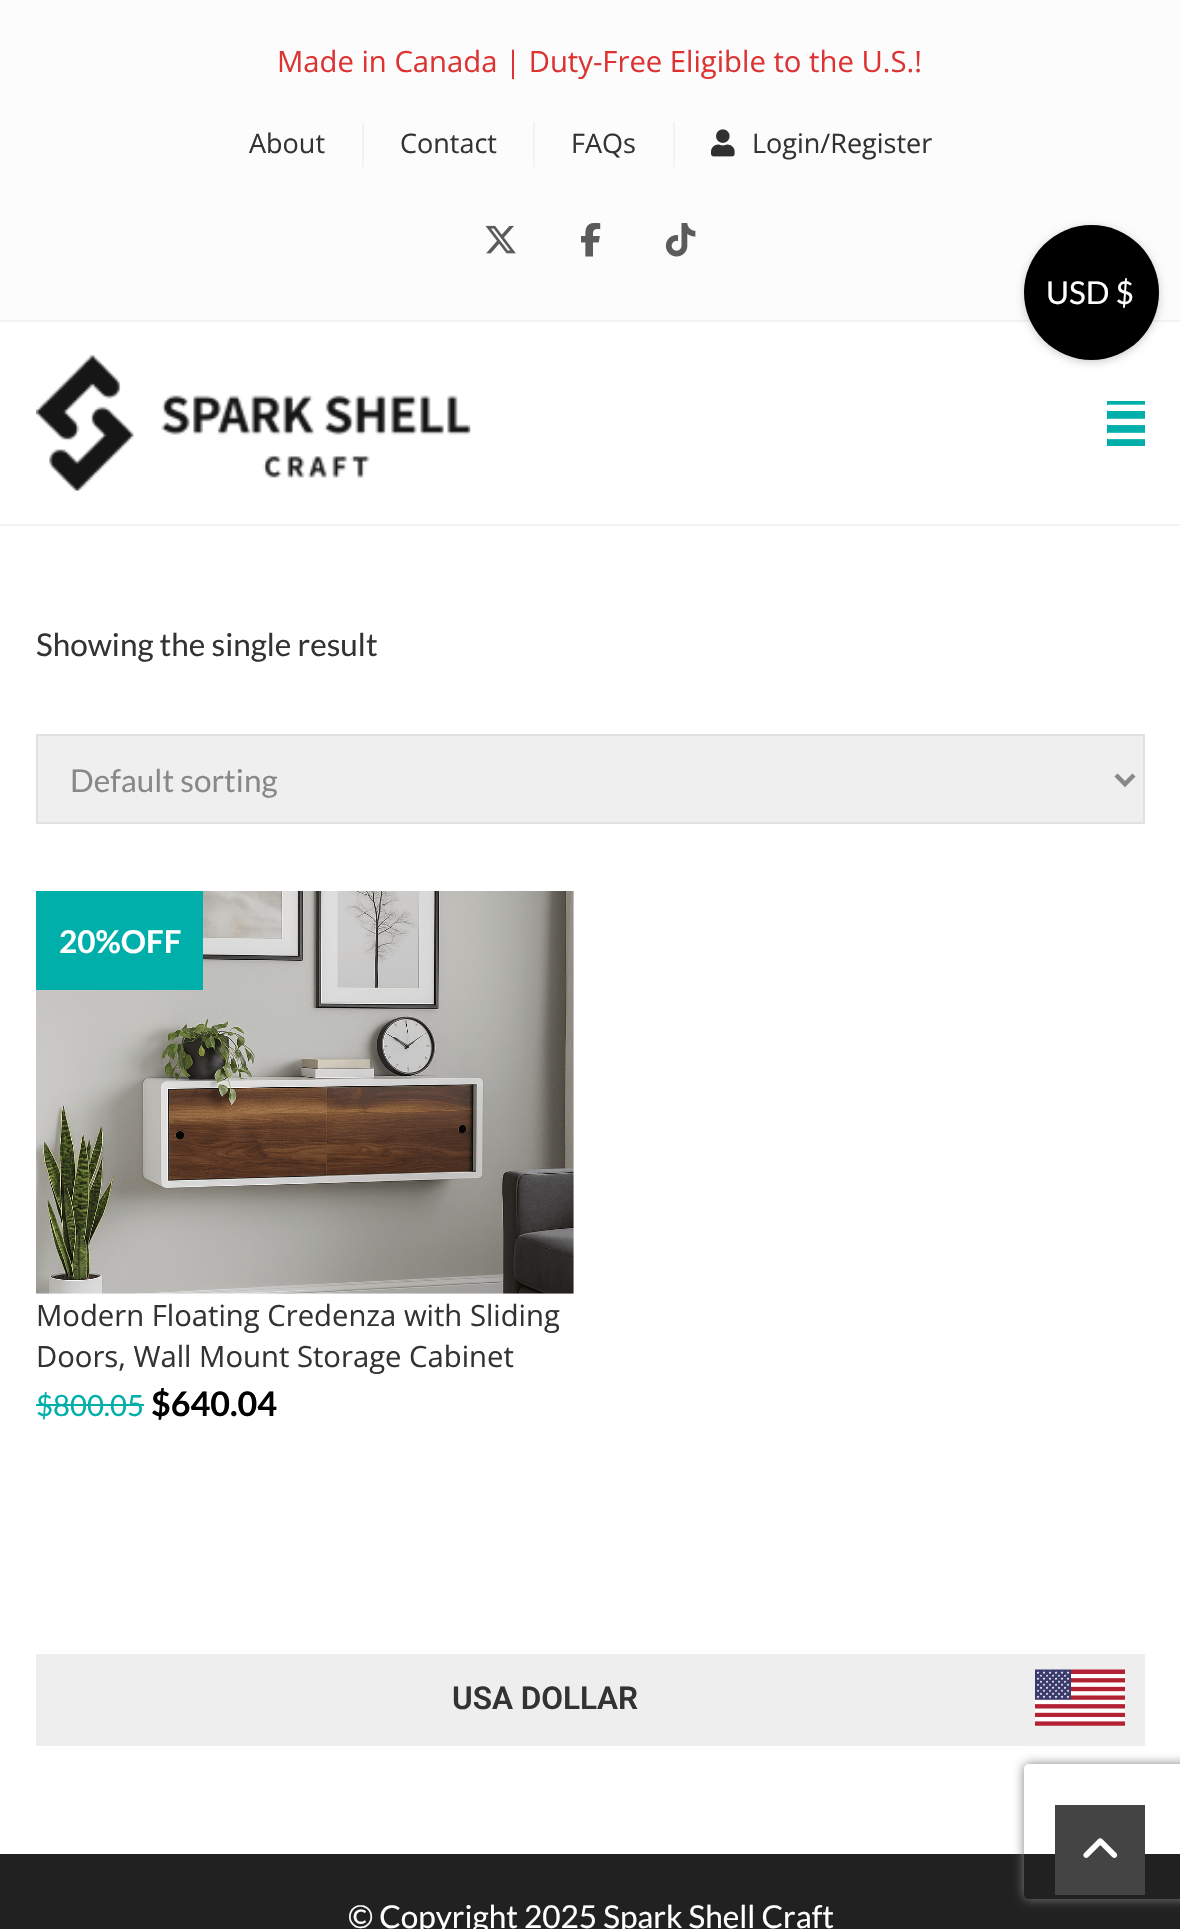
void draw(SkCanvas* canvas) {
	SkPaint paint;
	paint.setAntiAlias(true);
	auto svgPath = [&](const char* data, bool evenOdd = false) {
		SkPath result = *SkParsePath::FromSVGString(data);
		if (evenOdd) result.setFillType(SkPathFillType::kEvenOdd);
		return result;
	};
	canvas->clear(0xffffffff);
	paint.setColor(0xfffcfcfc);
	canvas->drawRect(SkRect::MakeXYWH(0, 0, 1180, 320), paint);
	paint.setColor(0xfff2f2f2);
	canvas->drawRect(SkRect::MakeXYWH(0, 320, 1180, 2), paint);
	SkFont f1(fontMgr->matchFamilyStyle("Open Sans", SkFontStyle::Normal()), 29.25);
	f1.setSubpixel(true);
	paint.setColor(0xffdd3333);
	canvas->drawString("Made in Canada | Duty-Free Eligible to the U.S.!", 277, 72, f1, paint);
	paint.setColor(0xfff2f2f2);
	canvas->drawRect(SkRect::MakeXYWH(362, 122, 2, 45), paint);
	SkFont f2(fontMgr->matchFamilyStyle("Open Sans", SkFontStyle::Normal()), 27);
	f2.setSubpixel(true);
	paint.setColor(0xff333333);
	canvas->drawString("About", 249, 153, f2, paint);
	paint.setColor(0xfff2f2f2);
	canvas->drawRect(SkRect::MakeXYWH(533, 122, 2, 45), paint);
	paint.setColor(0xff333333);
	canvas->drawString("Contact", 400, 153, f2, paint);
	paint.setColor(0xfff2f2f2);
	canvas->drawRect(SkRect::MakeXYWH(673, 122, 2, 45), paint);
	paint.setColor(0xff333333);
	canvas->drawString("FAQs", 571, 153, f2, paint);
	canvas->drawImageRect(SkImages::DeferredFromEncodedData(SkData::MakeFromFileName("img1.png")), SkRect::MakeXYWH(711, 129, 24, 28), SkSamplingOptions());
	canvas->drawString("Login/Register", 752, 153, f2, paint);
	canvas->drawImageRect(SkImages::DeferredFromEncodedData(SkData::MakeFromFileName("img2.png")), SkRect::MakeXYWH(485, 225, 31, 29), SkSamplingOptions());
	canvas->drawImageRect(SkImages::DeferredFromEncodedData(SkData::MakeFromFileName("img3.png")), SkRect::MakeXYWH(581, 223, 20, 34), SkSamplingOptions());
	canvas->drawImageRect(SkImages::DeferredFromEncodedData(SkData::MakeFromFileName("img4.png")), SkRect::MakeXYWH(665, 223, 31, 34), SkSamplingOptions());
	paint.setColor(0xfff2f2f2);
	canvas->drawRect(SkRect::MakeXYWH(0, 524, 1180, 2), paint);
	canvas->drawImageRect(SkImages::DeferredFromEncodedData(SkData::MakeFromFileName("img5.png")), SkRect::MakeXYWH(36, 355, 435, 136), SkSamplingOptions());
	paint.setColor(0xff00afaa);
	canvas->drawRect(SkRect::MakeXYWH(1107, 401, 38, 45), paint);
	canvas->drawImageRect(SkImages::DeferredFromEncodedData(SkData::MakeFromFileName("img6.png")), SkRect::MakeXYWH(1107, 404, 38, 36), SkSamplingOptions());
	SkFont f3(fontMgr->matchFamilyStyle("Lato", SkFontStyle::Normal()), 31.5);
	f3.setSubpixel(true);
	paint.setColor(0xff333333);
	canvas->drawString("Showing the single result", 36, 656, f3, paint);
	paint.setColor(0xffefefef);
	canvas->drawRect(SkRect::MakeXYWH(37, 735, 1107, 88), paint);
	paint.setStroke(true);
	paint.setStrokeWidth(2);
	paint.setColor(0xffe1e1e1);
	canvas->drawRect(SkRect::MakeXYWH(37, 735, 1107, 88), paint);
	paint.setStrokeWidth(4.5);
	paint.setColor(0xff888888);
	canvas->drawPath(svgPath("M1116 775L1125 784L1134 775"), paint);
	paint.setStroke(false);
	canvas->drawString("Default sorting", 70, 792, f3, paint);
	canvas->drawImageRect(SkImages::DeferredFromEncodedData(SkData::MakeFromFileName("img7.png")), SkRect::MakeXYWH(36, 891, 538, 403), SkSamplingOptions());
	paint.setColor(0xff00afaa);
	canvas->drawRect(SkRect::MakeXYWH(36, 891, 167, 99), paint);
	SkFont f4(fontMgr->matchFamilyStyle("Lato", SkFontStyle::Bold()), 31.5);
	f4.setSubpixel(true);
	paint.setColor(0xffffffff);
	canvas->drawString("20%OFF", 59, 953, f4, paint);
	paint.setColor(0xff333333);
	canvas->drawString("Modern Floating Credenza with Sliding", 36, 1326, f1, paint);
	canvas->drawString("Doors, Wall Mount Storage Cabinet", 36, 1367, f1, paint);
	SkFont f5(fontMgr->matchFamilyStyle("Lato", SkFontStyle::Normal()), 29.25);
	f5.setSubpixel(true);
	paint.setColor(0xff00afaa);
	canvas->drawString("$800.05", 36, 1416, f5, paint);
	canvas->drawRect(SkRect::MakeXYWH(36, 1404, 108, 2), paint);
	SkFont f6(fontMgr->matchFamilyStyle("Lato", SkFontStyle::Bold()), 34);
	f6.setSubpixel(true);
	paint.setColor(0xff000000);
	canvas->drawString("$640.04", 151, 1416, f6, paint);
	paint.setColor(0xff212121);
	canvas->drawRect(SkRect::MakeXYWH(0, 1854, 1180, 75), paint);
	paint.setColor(0xffeeeeee);
	canvas->drawRect(SkRect::MakeXYWH(36, 1654, 1109, 92), paint);
	canvas->drawImageRect(SkImages::DeferredFromEncodedData(SkData::MakeFromFileName("img8.png")), SkRect::MakeXYWH(1035, 1669, 90, 57), SkSamplingOptions());
	SkFont f7(fontMgr->matchFamilyStyle("Roboto", SkFontStyle(600, SkFontStyle::kNormal_Width, SkFontStyle::kUpright_Slant)), 31.5);
	f7.setSubpixel(true);
	paint.setColor(0xff333333);
	canvas->drawString("USA DOLLAR", 452, 1709, f7, paint);
	paint.setColor(0xffffffff);
	canvas->drawString("© Copyright 2025 Spark Shell Craft", 348, 1928, f3, paint);
	paint.setColor(0x33000000);
	paint.setMaskFilter(SkMaskFilter::MakeBlur(kNormal_SkBlurStyle, 4.5));
	canvas->drawRoundRect(SkRect::MakeXYWH(1024, 227, 135, 135), 67.5, 67.5, paint);
	paint.setMaskFilter(nullptr);
	paint.setColor(0xff000000);
	canvas->drawCircle(1091.5, 292.5, 67.5, paint);
	paint.setColor(0xffffffff);
	canvas->drawString("USD $", 1046, 304, f3, paint);
	canvas->save();
	canvas->clipPath(svgPath("M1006 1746H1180V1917H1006ZM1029 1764H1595C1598 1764 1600 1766 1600 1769V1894C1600 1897 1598 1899 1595 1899H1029C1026 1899 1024 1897 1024 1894V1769C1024 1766 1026 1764 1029 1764Z", true), true);
	paint.setColor(0xff808080);
	paint.setMaskFilter(SkMaskFilter::MakeBlur(kNormal_SkBlurStyle, 5.5));
	canvas->drawRoundRect(SkRect::MakeXYWH(1024, 1764, 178, 135), 5, 5, paint);
	paint.setMaskFilter(nullptr);
	canvas->restore();
	paint.setColor(0xff444444);
	canvas->drawRect(SkRect::MakeXYWH(1055, 1805, 90, 90), paint);
	canvas->drawImageRect(SkImages::DeferredFromEncodedData(SkData::MakeFromFileName("img9.png")), SkRect::MakeXYWH(1083, 1838, 35, 20), SkSamplingOptions());
}
